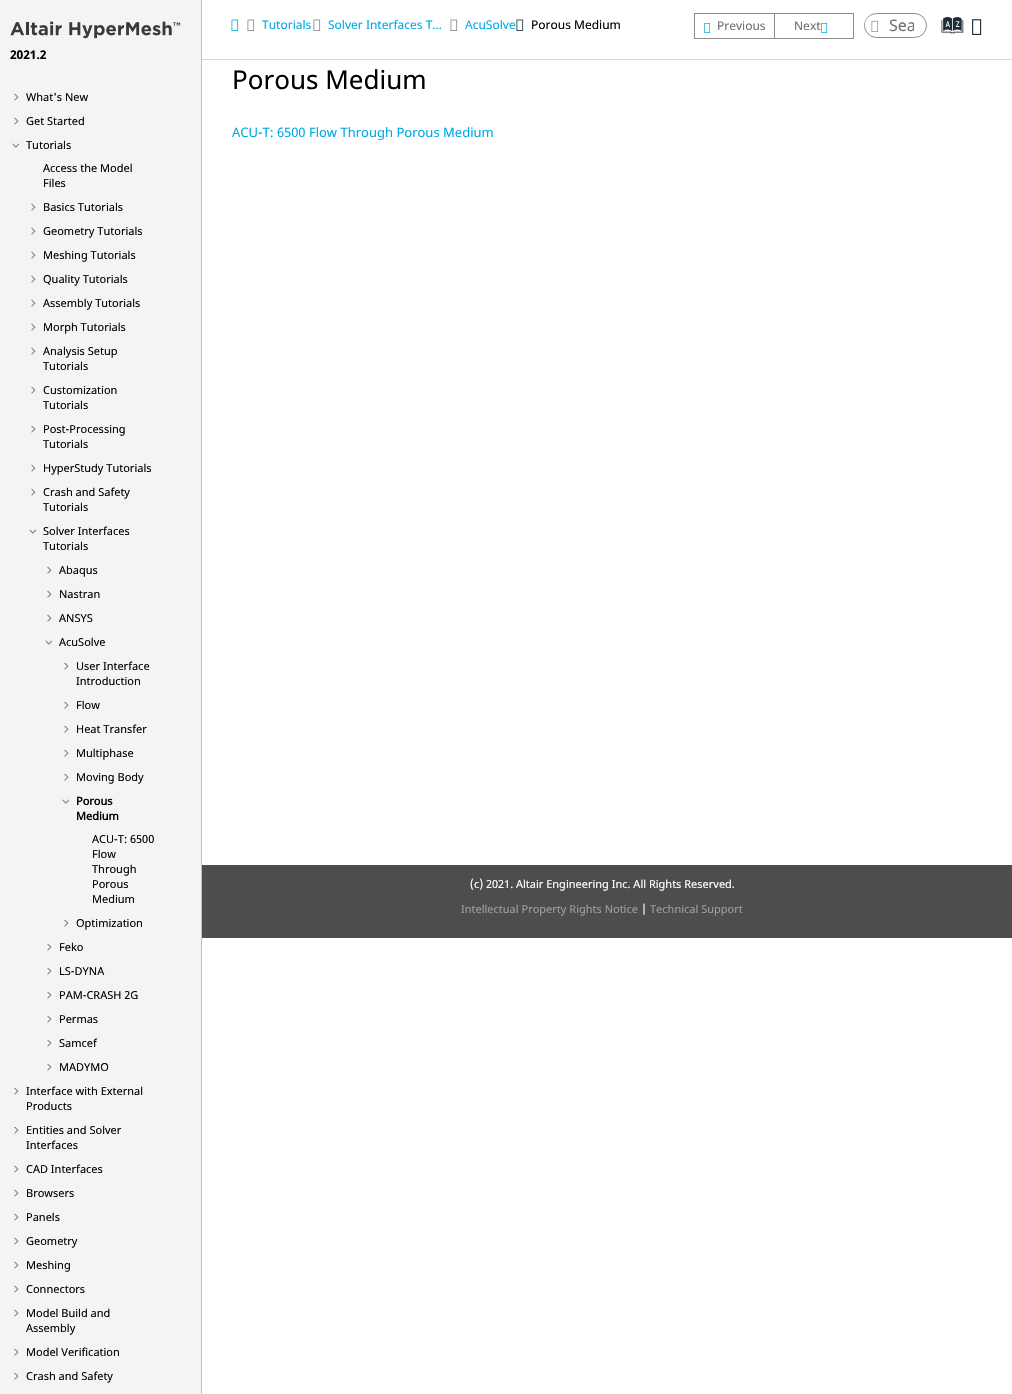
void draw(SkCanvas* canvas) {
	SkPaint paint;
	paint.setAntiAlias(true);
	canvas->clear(0xffffffff);
	paint.setColor(0xfff4f4f4);
	canvas->drawRect(SkRect::MakeXYWH(0, 0, 201, 1394), paint);
	paint.setColor(0xffc0c0c0);
	canvas->drawRect(SkRect::MakeXYWH(201, 0, 1, 1394), paint);
	canvas->drawImageRect(SkImages::DeferredFromEncodedData(SkData::MakeFromFileName("img1.png")), SkRect::MakeXYWH(10, 21, 171, 18), SkSamplingOptions());
	SkFont f1(fontMgr->matchFamilyStyle("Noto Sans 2", SkFontStyle::Bold()), 12);
	f1.setSubpixel(true);
	paint.setColor(0xff000000);
	canvas->drawString("2021.2", 10, 59, f1, paint);
	canvas->drawImageRect(SkImages::DeferredFromEncodedData(SkData::MakeFromFileName("img2.png")), SkRect::MakeXYWH(14, 93, 5, 8), SkSamplingOptions());
	SkFont f2(fontMgr->matchFamilyStyle("Noto Sans", SkFontStyle::Normal()), 11);
	f2.setSubpixel(true);
	canvas->drawString("What's New", 26, 101, f2, paint);
	canvas->drawImageRect(SkImages::DeferredFromEncodedData(SkData::MakeFromFileName("img2.png")), SkRect::MakeXYWH(14, 117, 5, 8), SkSamplingOptions());
	canvas->drawString("Get Started", 26, 125, f2, paint);
	canvas->drawImageRect(SkImages::DeferredFromEncodedData(SkData::MakeFromFileName("img3.png")), SkRect::MakeXYWH(12, 143, 7, 5), SkSamplingOptions());
	canvas->drawString("Tutorials", 26, 149, f2, paint);
	canvas->drawString("Access the Model", 43, 172, f2, paint);
	canvas->drawString("Files", 43, 187, f2, paint);
	canvas->drawImageRect(SkImages::DeferredFromEncodedData(SkData::MakeFromFileName("img2.png")), SkRect::MakeXYWH(31, 203, 5, 8), SkSamplingOptions());
	canvas->drawString("Basics Tutorials", 43, 211, f2, paint);
	canvas->drawImageRect(SkImages::DeferredFromEncodedData(SkData::MakeFromFileName("img2.png")), SkRect::MakeXYWH(31, 227, 5, 8), SkSamplingOptions());
	canvas->drawString("Geometry Tutorials", 43, 235, f2, paint);
	canvas->drawImageRect(SkImages::DeferredFromEncodedData(SkData::MakeFromFileName("img2.png")), SkRect::MakeXYWH(31, 251, 5, 8), SkSamplingOptions());
	canvas->drawString("Meshing Tutorials", 43, 259, f2, paint);
	canvas->drawImageRect(SkImages::DeferredFromEncodedData(SkData::MakeFromFileName("img2.png")), SkRect::MakeXYWH(31, 275, 5, 8), SkSamplingOptions());
	canvas->drawString("Quality Tutorials", 43, 283, f2, paint);
	canvas->drawImageRect(SkImages::DeferredFromEncodedData(SkData::MakeFromFileName("img2.png")), SkRect::MakeXYWH(31, 299, 5, 8), SkSamplingOptions());
	canvas->drawString("Assembly Tutorials", 43, 307, f2, paint);
	canvas->drawImageRect(SkImages::DeferredFromEncodedData(SkData::MakeFromFileName("img2.png")), SkRect::MakeXYWH(31, 323, 5, 8), SkSamplingOptions());
	canvas->drawString("Morph Tutorials", 43, 331, f2, paint);
	canvas->drawImageRect(SkImages::DeferredFromEncodedData(SkData::MakeFromFileName("img2.png")), SkRect::MakeXYWH(31, 347, 5, 8), SkSamplingOptions());
	canvas->drawString("Analysis Setup", 43, 355, f2, paint);
	canvas->drawString("Tutorials", 43, 370, f2, paint);
	canvas->drawImageRect(SkImages::DeferredFromEncodedData(SkData::MakeFromFileName("img2.png")), SkRect::MakeXYWH(31, 386, 5, 8), SkSamplingOptions());
	canvas->drawString("Customization", 43, 394, f2, paint);
	canvas->drawString("Tutorials", 43, 409, f2, paint);
	canvas->drawImageRect(SkImages::DeferredFromEncodedData(SkData::MakeFromFileName("img2.png")), SkRect::MakeXYWH(31, 425, 5, 8), SkSamplingOptions());
	canvas->drawString("Post-Processing", 43, 433, f2, paint);
	canvas->drawString("Tutorials", 43, 448, f2, paint);
	canvas->drawImageRect(SkImages::DeferredFromEncodedData(SkData::MakeFromFileName("img2.png")), SkRect::MakeXYWH(31, 464, 5, 8), SkSamplingOptions());
	canvas->drawString("HyperStudy Tutorials", 43, 472, f2, paint);
	canvas->drawImageRect(SkImages::DeferredFromEncodedData(SkData::MakeFromFileName("img2.png")), SkRect::MakeXYWH(31, 488, 5, 8), SkSamplingOptions());
	canvas->drawString("Crash and Safety", 43, 496, f2, paint);
	canvas->drawString("Tutorials", 43, 511, f2, paint);
	canvas->drawImageRect(SkImages::DeferredFromEncodedData(SkData::MakeFromFileName("img3.png")), SkRect::MakeXYWH(29, 529, 7, 5), SkSamplingOptions());
	canvas->drawString("Solver Interfaces", 43, 535, f2, paint);
	canvas->drawString("Tutorials", 43, 550, f2, paint);
	canvas->drawImageRect(SkImages::DeferredFromEncodedData(SkData::MakeFromFileName("img2.png")), SkRect::MakeXYWH(47, 566, 5, 8), SkSamplingOptions());
	canvas->drawString("Abaqus", 59, 574, f2, paint);
	canvas->drawImageRect(SkImages::DeferredFromEncodedData(SkData::MakeFromFileName("img2.png")), SkRect::MakeXYWH(47, 590, 5, 8), SkSamplingOptions());
	canvas->drawString("Nastran", 59, 598, f2, paint);
	canvas->drawImageRect(SkImages::DeferredFromEncodedData(SkData::MakeFromFileName("img2.png")), SkRect::MakeXYWH(47, 614, 5, 8), SkSamplingOptions());
	canvas->drawString("ANSYS", 59, 622, f2, paint);
	canvas->drawImageRect(SkImages::DeferredFromEncodedData(SkData::MakeFromFileName("img3.png")), SkRect::MakeXYWH(45, 640, 7, 5), SkSamplingOptions());
	canvas->drawString("AcuSolve", 59, 646, f2, paint);
	canvas->drawImageRect(SkImages::DeferredFromEncodedData(SkData::MakeFromFileName("img2.png")), SkRect::MakeXYWH(64, 662, 5, 8), SkSamplingOptions());
	canvas->drawString("User Interface", 76, 670, f2, paint);
	canvas->drawString("Introduction", 76, 685, f2, paint);
	canvas->drawImageRect(SkImages::DeferredFromEncodedData(SkData::MakeFromFileName("img2.png")), SkRect::MakeXYWH(64, 701, 5, 8), SkSamplingOptions());
	canvas->drawString("Flow", 76, 709, f2, paint);
	canvas->drawImageRect(SkImages::DeferredFromEncodedData(SkData::MakeFromFileName("img2.png")), SkRect::MakeXYWH(64, 725, 5, 8), SkSamplingOptions());
	canvas->drawString("Heat Transfer", 76, 733, f2, paint);
	canvas->drawImageRect(SkImages::DeferredFromEncodedData(SkData::MakeFromFileName("img2.png")), SkRect::MakeXYWH(64, 749, 5, 8), SkSamplingOptions());
	canvas->drawString("Multiphase", 76, 757, f2, paint);
	canvas->drawImageRect(SkImages::DeferredFromEncodedData(SkData::MakeFromFileName("img2.png")), SkRect::MakeXYWH(64, 773, 5, 8), SkSamplingOptions());
	canvas->drawString("Moving Body", 76, 781, f2, paint);
	canvas->drawImageRect(SkImages::DeferredFromEncodedData(SkData::MakeFromFileName("img3.png")), SkRect::MakeXYWH(62, 799, 7, 5), SkSamplingOptions());
	SkFont f3(fontMgr->matchFamilyStyle("Noto Sans", SkFontStyle::Bold()), 11);
	f3.setSubpixel(true);
	canvas->drawString("Porous", 76, 805, f3, paint);
	canvas->drawString("Medium", 76, 820, f3, paint);
	canvas->drawString("ACU-T: 6500", 92, 843, f2, paint);
	canvas->drawString("Flow", 92, 858, f2, paint);
	canvas->drawString("Through", 92, 873, f2, paint);
	canvas->drawString("Porous", 92, 888, f2, paint);
	canvas->drawString("Medium", 92, 903, f2, paint);
	canvas->drawImageRect(SkImages::DeferredFromEncodedData(SkData::MakeFromFileName("img2.png")), SkRect::MakeXYWH(64, 919, 5, 8), SkSamplingOptions());
	canvas->drawString("Optimization", 76, 927, f2, paint);
	canvas->drawImageRect(SkImages::DeferredFromEncodedData(SkData::MakeFromFileName("img2.png")), SkRect::MakeXYWH(47, 943, 5, 8), SkSamplingOptions());
	canvas->drawString("Feko", 59, 951, f2, paint);
	canvas->drawImageRect(SkImages::DeferredFromEncodedData(SkData::MakeFromFileName("img2.png")), SkRect::MakeXYWH(47, 967, 5, 8), SkSamplingOptions());
	canvas->drawString("LS-DYNA", 59, 975, f2, paint);
	canvas->drawImageRect(SkImages::DeferredFromEncodedData(SkData::MakeFromFileName("img2.png")), SkRect::MakeXYWH(47, 991, 5, 8), SkSamplingOptions());
	canvas->drawString("PAM-CRASH 2G", 59, 999, f2, paint);
	canvas->drawImageRect(SkImages::DeferredFromEncodedData(SkData::MakeFromFileName("img2.png")), SkRect::MakeXYWH(47, 1015, 5, 8), SkSamplingOptions());
	canvas->drawString("Permas", 59, 1023, f2, paint);
	canvas->drawImageRect(SkImages::DeferredFromEncodedData(SkData::MakeFromFileName("img2.png")), SkRect::MakeXYWH(47, 1039, 5, 8), SkSamplingOptions());
	canvas->drawString("Samcef", 59, 1047, f2, paint);
	canvas->drawImageRect(SkImages::DeferredFromEncodedData(SkData::MakeFromFileName("img2.png")), SkRect::MakeXYWH(47, 1063, 5, 8), SkSamplingOptions());
	canvas->drawString("MADYMO", 59, 1071, f2, paint);
	canvas->drawImageRect(SkImages::DeferredFromEncodedData(SkData::MakeFromFileName("img2.png")), SkRect::MakeXYWH(14, 1087, 5, 8), SkSamplingOptions());
	canvas->drawString("Interface with External", 26, 1095, f2, paint);
	canvas->drawString("Products", 26, 1110, f2, paint);
	canvas->drawImageRect(SkImages::DeferredFromEncodedData(SkData::MakeFromFileName("img2.png")), SkRect::MakeXYWH(14, 1126, 5, 8), SkSamplingOptions());
	canvas->drawString("Entities and Solver", 26, 1134, f2, paint);
	canvas->drawString("Interfaces", 26, 1149, f2, paint);
	canvas->drawImageRect(SkImages::DeferredFromEncodedData(SkData::MakeFromFileName("img2.png")), SkRect::MakeXYWH(14, 1165, 5, 8), SkSamplingOptions());
	canvas->drawString("CAD Interfaces", 26, 1173, f2, paint);
	canvas->drawImageRect(SkImages::DeferredFromEncodedData(SkData::MakeFromFileName("img2.png")), SkRect::MakeXYWH(14, 1189, 5, 8), SkSamplingOptions());
	canvas->drawString("Browsers", 26, 1197, f2, paint);
	canvas->drawImageRect(SkImages::DeferredFromEncodedData(SkData::MakeFromFileName("img2.png")), SkRect::MakeXYWH(14, 1213, 5, 8), SkSamplingOptions());
	canvas->drawString("Panels", 26, 1221, f2, paint);
	canvas->drawImageRect(SkImages::DeferredFromEncodedData(SkData::MakeFromFileName("img2.png")), SkRect::MakeXYWH(14, 1237, 5, 8), SkSamplingOptions());
	canvas->drawString("Geometry", 26, 1245, f2, paint);
	canvas->drawImageRect(SkImages::DeferredFromEncodedData(SkData::MakeFromFileName("img2.png")), SkRect::MakeXYWH(14, 1261, 5, 8), SkSamplingOptions());
	canvas->drawString("Meshing", 26, 1269, f2, paint);
	canvas->drawImageRect(SkImages::DeferredFromEncodedData(SkData::MakeFromFileName("img2.png")), SkRect::MakeXYWH(14, 1285, 5, 8), SkSamplingOptions());
	canvas->drawString("Connectors", 26, 1293, f2, paint);
	canvas->drawImageRect(SkImages::DeferredFromEncodedData(SkData::MakeFromFileName("img2.png")), SkRect::MakeXYWH(14, 1309, 5, 8), SkSamplingOptions());
	canvas->drawString("Model Build and", 26, 1317, f2, paint);
	canvas->drawString("Assembly", 26, 1332, f2, paint);
	canvas->drawImageRect(SkImages::DeferredFromEncodedData(SkData::MakeFromFileName("img2.png")), SkRect::MakeXYWH(14, 1348, 5, 8), SkSamplingOptions());
	canvas->drawString("Model Verification", 26, 1356, f2, paint);
	canvas->drawImageRect(SkImages::DeferredFromEncodedData(SkData::MakeFromFileName("img2.png")), SkRect::MakeXYWH(14, 1372, 5, 8), SkSamplingOptions());
	canvas->drawString("Crash and Safety", 26, 1380, f2, paint);
	paint.setColor(0xffd8d8d8);
	canvas->drawRect(SkRect::MakeXYWH(202, 59, 810, 1), paint);
	canvas->drawImageRect(SkImages::DeferredFromEncodedData(SkData::MakeFromFileName("img4.png")), SkRect::MakeXYWH(231, 19, 8, 12), SkSamplingOptions());
	canvas->drawImageRect(SkImages::DeferredFromEncodedData(SkData::MakeFromFileName("img5.png")), SkRect::MakeXYWH(247, 19, 8, 12), SkSamplingOptions());
	SkFont f4(fontMgr->matchFamilyStyle("Noto Sans", SkFontStyle::Normal()), 12);
	f4.setSubpixel(true);
	paint.setColor(0xff00aae6);
	canvas->drawString("Tutorials", 262, 29, f4, paint);
	canvas->drawImageRect(SkImages::DeferredFromEncodedData(SkData::MakeFromFileName("img5.png")), SkRect::MakeXYWH(313, 19, 8, 12), SkSamplingOptions());
	canvas->drawString("Solver Interfaces T…", 328, 29, f4, paint);
	canvas->drawImageRect(SkImages::DeferredFromEncodedData(SkData::MakeFromFileName("img5.png")), SkRect::MakeXYWH(450, 19, 8, 12), SkSamplingOptions());
	canvas->drawString("AcuSolve", 465, 29, f4, paint);
	canvas->drawImageRect(SkImages::DeferredFromEncodedData(SkData::MakeFromFileName("img6.png")), SkRect::MakeXYWH(516, 19, 8, 12), SkSamplingOptions());
	paint.setColor(0xff000000);
	canvas->drawString("Porous Medium", 531, 29, f4, paint);
	paint.setColor(0xff8b8b8b);
	canvas->drawRect(SkRect::MakeXYWH(694, 13, 80, 1), paint);
	canvas->drawRect(SkRect::MakeXYWH(694, 38, 80, 1), paint);
	canvas->drawRect(SkRect::MakeXYWH(694, 13, 1, 26), paint);
	canvas->drawImageRect(SkImages::DeferredFromEncodedData(SkData::MakeFromFileName("img7.png")), SkRect::MakeXYWH(704, 23, 7, 10), SkSamplingOptions());
	paint.setColor(0xff707070);
	canvas->drawString("Previous", 717, 30, f4, paint);
	paint.setStroke(true);
	paint.setStrokeWidth(1);
	paint.setColor(0xff8b8b8b);
	canvas->drawRect(SkRect::MakeXYWH(774.5, 13.5, 79, 25), paint);
	paint.setStroke(false);
	paint.setColor(0xff707070);
	canvas->drawString("Next", 794, 30, f4, paint);
	canvas->drawImageRect(SkImages::DeferredFromEncodedData(SkData::MakeFromFileName("img7.png")), SkRect::MakeXYWH(821, 23, 7, 10), SkSamplingOptions());
	paint.setStroke(true);
	paint.setColor(0xff8b8b8b);
	canvas->drawRoundRect(SkRect::MakeXYWH(864.5, 13.5, 62, 24), 12, 12, paint);
	paint.setStroke(false);
	paint.setColor(0xffffffff);
	canvas->drawRoundRect(SkRect::MakeXYWH(865, 15, 20, 19), 9.5, 9.5, paint);
	canvas->drawImageRect(SkImages::DeferredFromEncodedData(SkData::MakeFromFileName("img8.png")), SkRect::MakeXYWH(871, 20, 7, 12), SkSamplingOptions());
	canvas->save();
	canvas->clipRect(SkRect::MakeXYWH(889, 14, 25, 22));
	SkFont f5(fontMgr->matchFamilyStyle("Noto Sans", SkFontStyle::Normal()), 16);
	f5.setSubpixel(true);
	paint.setColor(0xff707070);
	canvas->drawString("Sea", 889, 31, f5, paint);
	canvas->restore();
	SkFont f6(fontMgr->matchFamilyStyle("Oxygen", SkFontStyle::Normal()), 23);
	f6.setSubpixel(true);
	paint.setColor(0xff1d2e38);
	canvas->drawString("a", 944, 36, f6, paint);
	canvas->drawImageRect(SkImages::DeferredFromEncodedData(SkData::MakeFromFileName("img9.png")), SkRect::MakeXYWH(972, 19, 10, 16), SkSamplingOptions());
	SkFont f7(fontMgr->matchFamilyStyle("Noto Sans", SkFontStyle::Normal()), 26);
	f7.setSubpixel(true);
	paint.setColor(0xff000000);
	canvas->drawString("Porous Medium", 232, 89, f7, paint);
	SkFont f8(fontMgr->matchFamilyStyle("Noto Sans", SkFontStyle::Normal()), 13);
	f8.setSubpixel(true);
	paint.setColor(0xff00aae6);
	canvas->drawString("ACU-T: 6500 Flow Through Porous Medium", 232, 137, f8, paint);
	paint.setColor(0xff4d4d4d);
	canvas->drawRect(SkRect::MakeXYWH(202, 865, 810, 73), paint);
	paint.setColor(0xffffffff);
	canvas->drawString("(c) 2021. Altair Engineering Inc. All Rights Reserved.", 470, 888, f2, paint);
	paint.setColor(0xff9f9f9f);
	canvas->drawString("Intellectual Property Rights Notice", 461, 913, f2, paint);
	paint.setColor(0xffffffff);
	canvas->drawString("|", 641, 913, f2, paint);
	paint.setColor(0xff9f9f9f);
	canvas->drawString("Technical Support", 650, 913, f2, paint);
}
